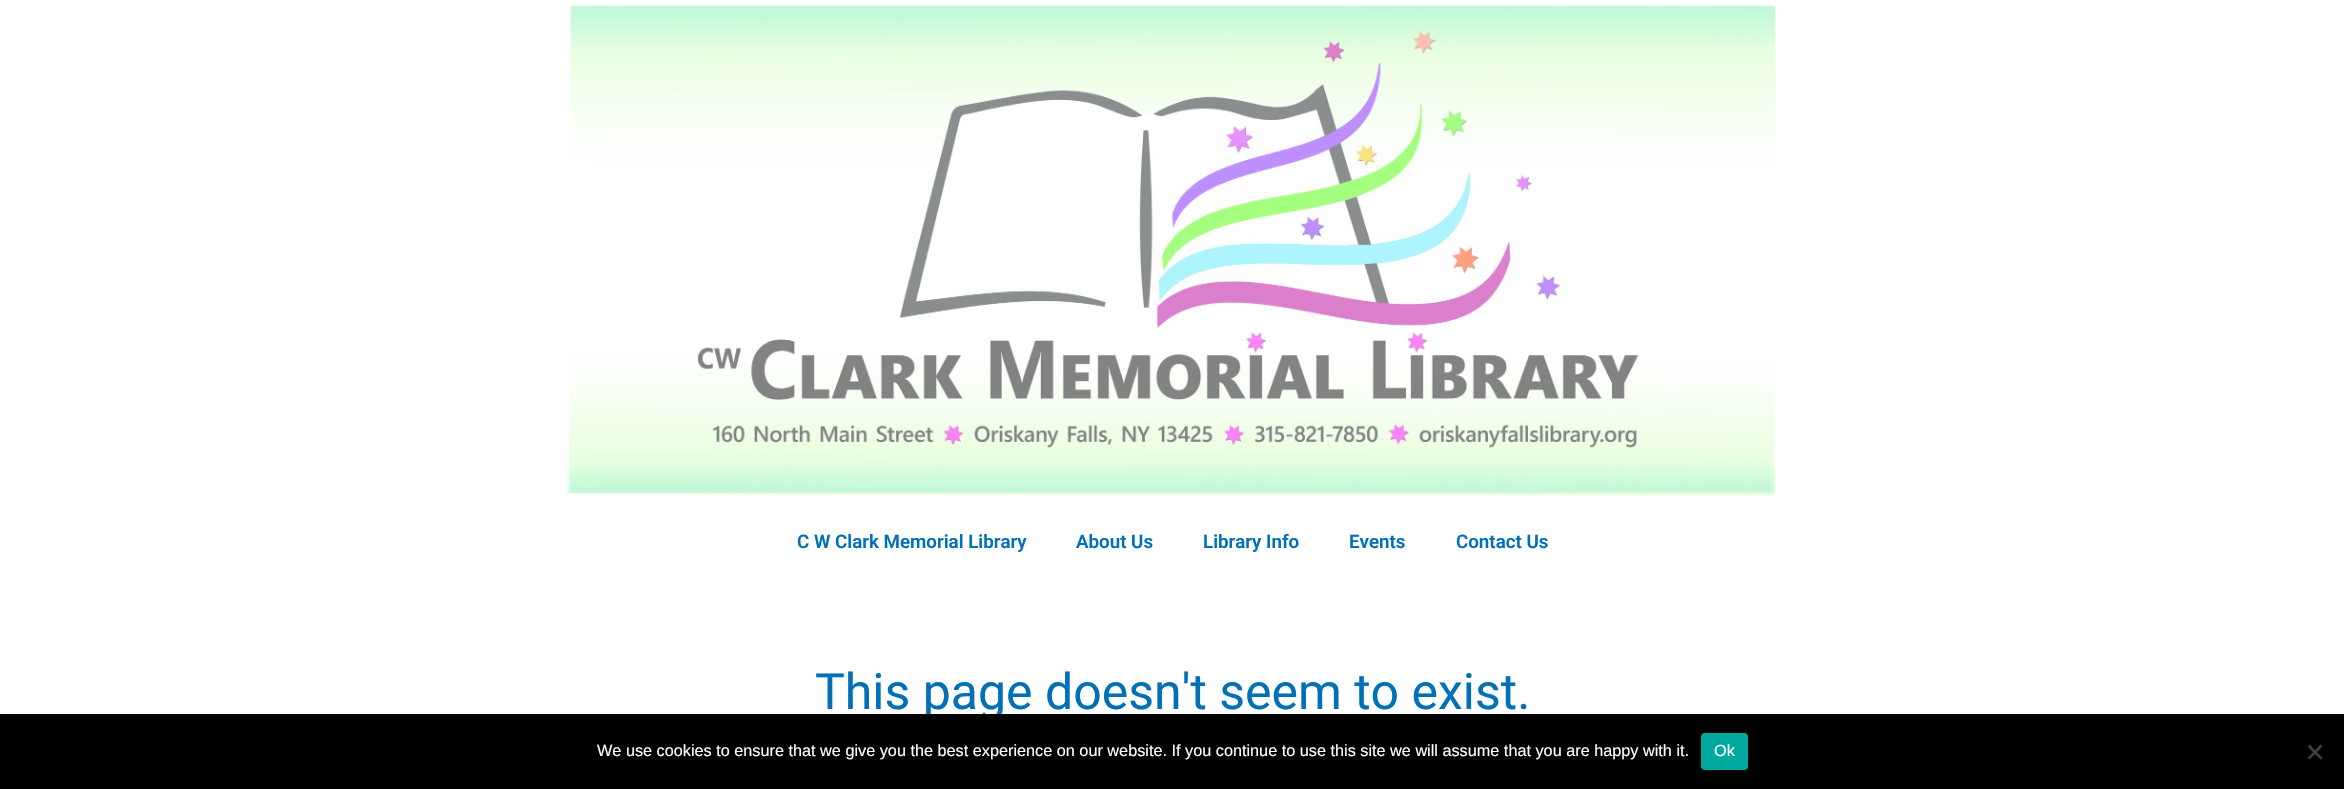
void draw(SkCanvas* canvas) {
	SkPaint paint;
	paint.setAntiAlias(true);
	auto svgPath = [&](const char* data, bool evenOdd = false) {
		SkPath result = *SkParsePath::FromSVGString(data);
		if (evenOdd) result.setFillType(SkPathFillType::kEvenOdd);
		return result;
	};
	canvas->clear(0xffffffff);
	canvas->drawImageRect(SkImages::DeferredFromEncodedData(SkData::MakeFromFileName("img1.png")), SkRect::MakeXYWH(565, 4, 1212, 492), SkSamplingOptions());
	SkFont f1(fontMgr->matchFamilyStyle("Roboto", SkFontStyle(600, SkFontStyle::kNormal_Width, SkFontStyle::kUpright_Slant)), 18.75);
	f1.setSubpixel(true);
	paint.setColor(0xff0170b9);
	canvas->drawString("C W Clark Memorial Library", 797, 548, f1, paint);
	canvas->drawString("About Us", 1076, 548, f1, paint);
	canvas->drawString("Library Info", 1203, 548, f1, paint);
	canvas->drawString("Events", 1349, 548, f1, paint);
	canvas->drawString("Contact Us", 1456, 548, f1, paint);
	SkFont f2(fontMgr->matchFamilyStyle("Roboto", SkFontStyle::Normal()), 50);
	f2.setSubpixel(true);
	canvas->drawString("This page doesn't seem to exist.", 815, 709, f2, paint);
	paint.setColor(0xff000000);
	canvas->drawRect(SkRect::MakeXYWH(0, 714, 2344, 75), paint);
	SkFont f3(fontMgr->matchFamilyStyle("Liberation Sans", SkFontStyle::Normal()), 16.25);
	f3.setSubpixel(true);
	paint.setColor(0xffffffff);
	canvas->drawString("We use cookies to ensure that we give you the best experience on our website. If you continue to use this site we will assume that you are happy with it.", 597, 756, f3, paint);
	paint.setColor(0xff00a99d);
	canvas->drawRoundRect(SkRect::MakeXYWH(1701, 733, 47, 37), 4, 4, paint);
	paint.setColor(0xffffffff);
	canvas->drawString("Ok", 1714, 756, f3, paint);
	paint.setColor(0xff404040);
	canvas->drawPath(svgPath("M2320.5 744.5L2322.5 746.5L2309.5 759.5L2307.5 758Z"), paint);
	canvas->drawPath(svgPath("M2307.5 746.5L2309.5 744.5L2322.5 758L2320.5 759.5Z"), paint);
}
